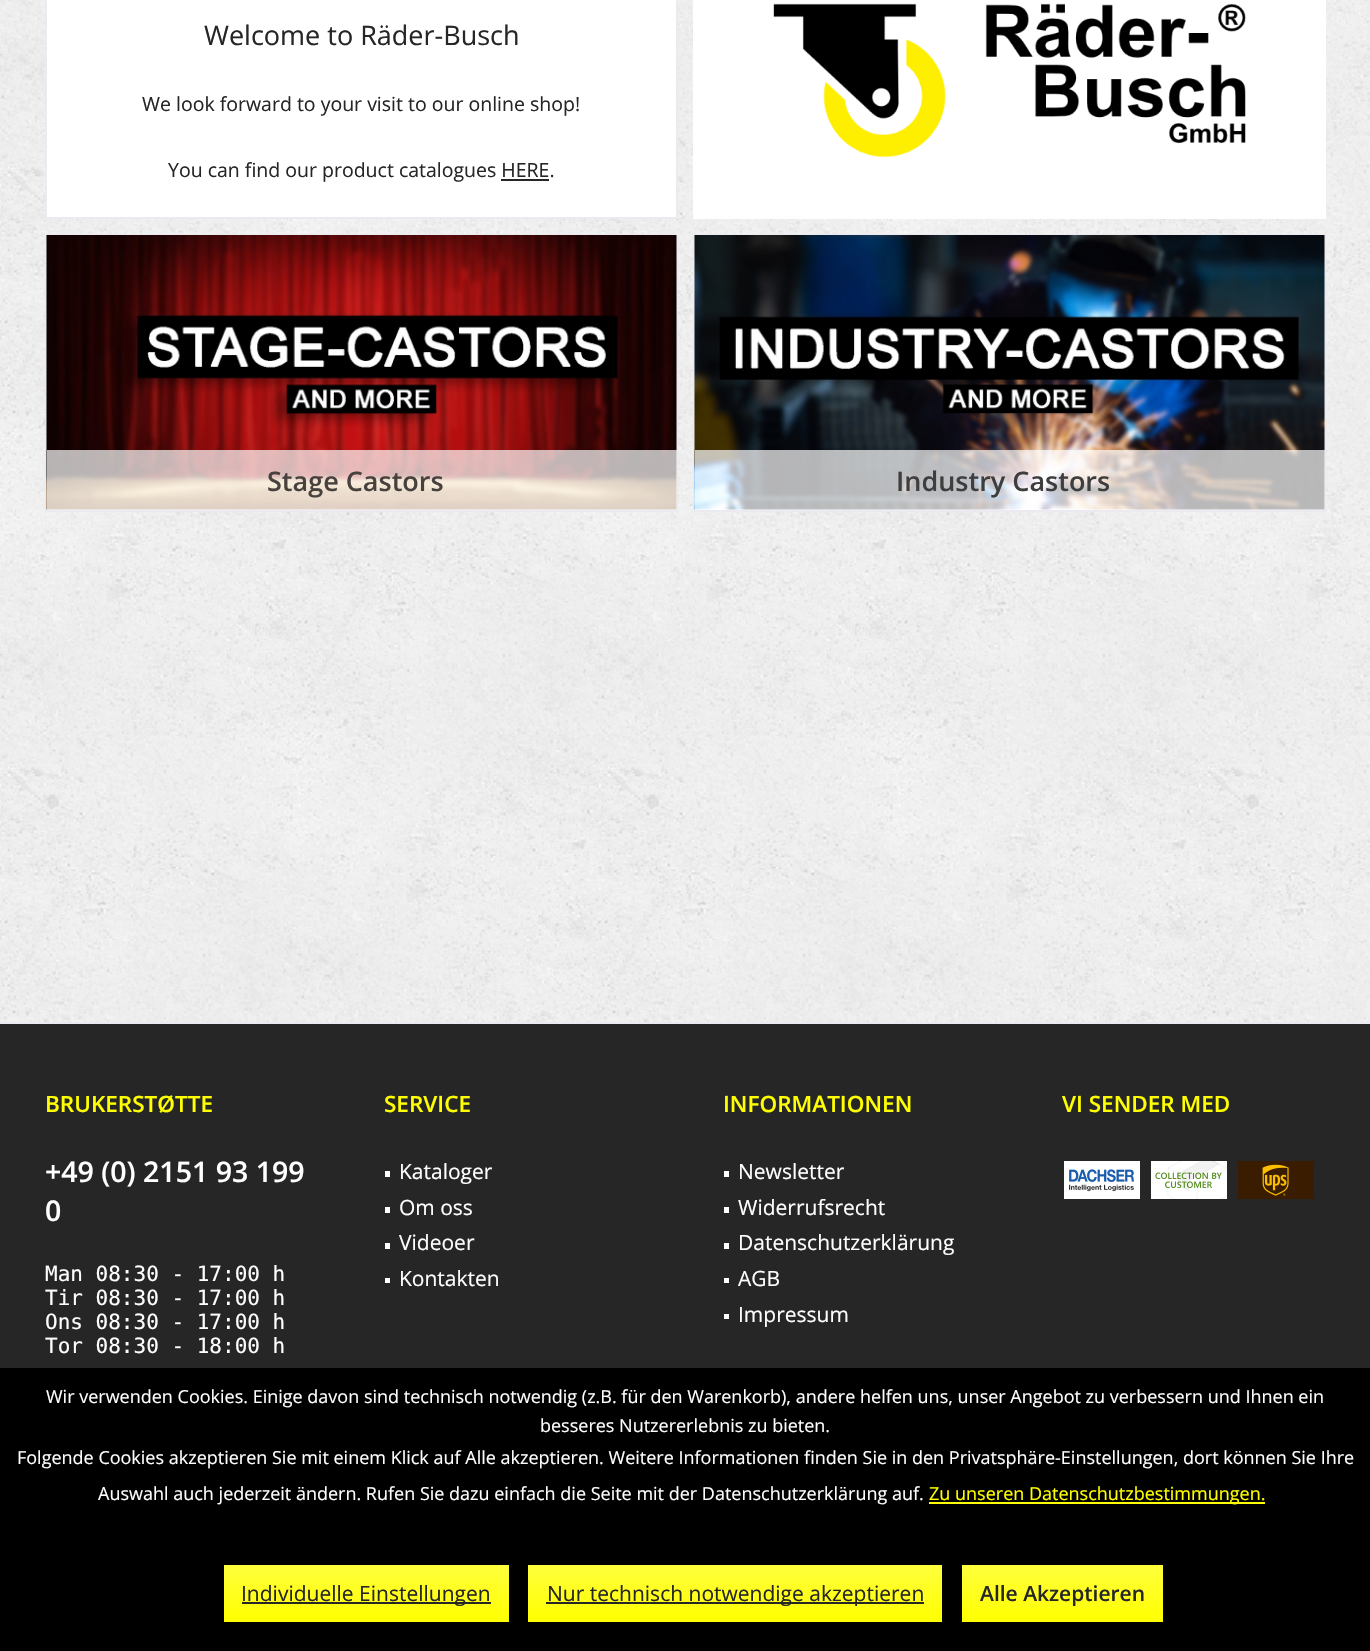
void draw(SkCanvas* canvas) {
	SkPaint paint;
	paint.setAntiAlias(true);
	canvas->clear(0xffffffff);
	canvas->drawImageRect(SkImages::DeferredFromEncodedData(SkData::MakeFromFileName("img1.png")), SkRect::MakeXYWH(0, 0, 1370, 1022), SkSamplingOptions());
	paint.setColor(0xffffffff);
	canvas->drawRect(SkRect::MakeXYWH(46, -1, 631, 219), paint);
	paint.setStroke(true);
	paint.setStrokeWidth(2);
	paint.setColor(0xffeaeaf0);
	canvas->drawRect(SkRect::MakeXYWH(46, -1, 631, 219), paint);
	SkFont f1(fontMgr->matchFamilyStyle("Open Sans", SkFontStyle::Normal()), 27);
	f1.setSubpixel(true);
	paint.setStroke(false);
	paint.setColor(0xff262626);
	canvas->drawString("Welcome to Räder-Busch", 204, 45, f1, paint);
	SkFont f2(fontMgr->matchFamilyStyle("Open Sans", SkFontStyle::Normal()), 19.5);
	f2.setSubpixel(true);
	canvas->drawString("We look forward to your visit to our online shop!", 142, 111, f2, paint);
	canvas->drawString("You can find our product catalogues HERE.", 168, 177, f2, paint);
	canvas->drawRect(SkRect::MakeXYWH(501, 179, 48, 2), paint);
	paint.setColor(0xffffffff);
	canvas->drawRect(SkRect::MakeXYWH(693, 0, 633, 219), paint);
	canvas->drawImageRect(SkImages::DeferredFromEncodedData(SkData::MakeFromFileName("img2.png")), SkRect::MakeXYWH(773, 3, 473, 155), SkSamplingOptions());
	canvas->drawRect(SkRect::MakeXYWH(47, 509, 629, 1), paint);
	paint.setStroke(true);
	paint.setColor(0xffeaeaf0);
	canvas->drawRect(SkRect::MakeXYWH(46, 235, 631, 276), paint);
	canvas->drawImageRect(SkImages::DeferredFromEncodedData(SkData::MakeFromFileName("img3.png")), SkRect::MakeXYWH(46, 235, 631, 275), SkSamplingOptions());
	paint.setStroke(false);
	paint.setColor(0xb3ffffff);
	canvas->drawRect(SkRect::MakeXYWH(47, 450, 630, 60), paint);
	SkFont f3(fontMgr->matchFamilyStyle("Open Sans", SkFontStyle(600, SkFontStyle::kNormal_Width, SkFontStyle::kUpright_Slant)), 27);
	f3.setSubpixel(true);
	paint.setColor(0xff47423e);
	canvas->drawString("Stage Castors", 267, 491, f3, paint);
	paint.setColor(0xffffffff);
	canvas->drawRect(SkRect::MakeXYWH(695, 509, 629, 1), paint);
	paint.setStroke(true);
	paint.setColor(0xffeaeaf0);
	canvas->drawRect(SkRect::MakeXYWH(694, 235, 631, 276), paint);
	canvas->drawImageRect(SkImages::DeferredFromEncodedData(SkData::MakeFromFileName("img4.png")), SkRect::MakeXYWH(694, 235, 631, 275), SkSamplingOptions());
	paint.setStroke(false);
	paint.setColor(0xb3ffffff);
	canvas->drawRect(SkRect::MakeXYWH(695, 450, 630, 60), paint);
	paint.setColor(0xff3f3e3f);
	canvas->drawString("Industry Castors", 896, 491, f3, paint);
	paint.setColor(0xff262626);
	canvas->drawRect(SkRect::MakeXYWH(0, 1024, 1370, 344), paint);
	paint.setColor(0xffeaeaf0);
	canvas->drawRect(SkRect::MakeXYWH(0, 1022, 1370, 2), paint);
	SkFont f4(fontMgr->matchFamilyStyle("Open Sans", SkFontStyle(600, SkFontStyle::kNormal_Width, SkFontStyle::kUpright_Slant)), 22.5);
	f4.setSubpixel(true);
	paint.setColor(0xffffff00);
	canvas->drawString("BRUKERSTØTTE", 45, 1112, f4, paint);
	SkFont f5(fontMgr->matchFamilyStyle("Open Sans", SkFontStyle(600, SkFontStyle::kNormal_Width, SkFontStyle::kUpright_Slant)), 28.5);
	f5.setSubpixel(true);
	paint.setColor(0xffffffff);
	canvas->drawString("+49 (0) 2151 93 199", 45, 1182, f5, paint);
	canvas->drawString("0", 45, 1221, f5, paint);
	SkFont f6(fontMgr->matchFamilyStyle("DejaVu Sans Mono", SkFontStyle::Normal()), 21);
	f6.setSubpixel(true);
	canvas->drawString("Man 08:30 - 17:00 h", 45, 1281, f6, paint);
	canvas->drawString("Tir 08:30 - 17:00 h", 45, 1305, f6, paint);
	canvas->drawString("Ons 08:30 - 17:00 h", 45, 1329, f6, paint);
	canvas->drawString("Tor 08:30 - 18:00 h", 45, 1353, f6, paint);
	paint.setColor(0xffffff00);
	canvas->drawString("SERVICE", 384, 1112, f4, paint);
	paint.setColor(0xffffffff);
	canvas->drawRect(SkRect::MakeXYWH(385, 1171, 5, 6), paint);
	SkFont f7(fontMgr->matchFamilyStyle("Open Sans", SkFontStyle::Normal()), 21);
	f7.setSubpixel(true);
	canvas->drawString("Kataloger", 399, 1179, f7, paint);
	canvas->drawRect(SkRect::MakeXYWH(385, 1207, 5, 6), paint);
	canvas->drawString("Om oss", 399, 1215, f7, paint);
	canvas->drawRect(SkRect::MakeXYWH(385, 1243, 5, 6), paint);
	canvas->drawString("Videoer", 399, 1250, f7, paint);
	canvas->drawRect(SkRect::MakeXYWH(385, 1278, 5, 5), paint);
	canvas->drawString("Kontakten", 399, 1286, f7, paint);
	paint.setColor(0xffffff00);
	canvas->drawString("INFORMATIONEN", 723, 1112, f4, paint);
	paint.setColor(0xffffffff);
	canvas->drawRect(SkRect::MakeXYWH(724, 1171, 5, 6), paint);
	canvas->drawString("Newsletter", 738, 1179, f7, paint);
	canvas->drawRect(SkRect::MakeXYWH(724, 1207, 5, 6), paint);
	canvas->drawString("Widerrufsrecht", 738, 1215, f7, paint);
	canvas->drawRect(SkRect::MakeXYWH(724, 1243, 5, 6), paint);
	canvas->drawString("Datenschutzerklärung", 738, 1250, f7, paint);
	canvas->drawRect(SkRect::MakeXYWH(724, 1278, 5, 5), paint);
	canvas->drawString("AGB", 738, 1286, f7, paint);
	canvas->drawRect(SkRect::MakeXYWH(724, 1314, 5, 5), paint);
	canvas->drawString("Impressum", 738, 1322, f7, paint);
	paint.setColor(0xffffff00);
	canvas->drawString("VI SENDER MED", 1062, 1112, f4, paint);
	canvas->drawImageRect(SkImages::DeferredFromEncodedData(SkData::MakeFromFileName("img5.png")), SkRect::MakeXYWH(1064, 1161, 76, 38), SkSamplingOptions());
	canvas->drawImageRect(SkImages::DeferredFromEncodedData(SkData::MakeFromFileName("img6.png")), SkRect::MakeXYWH(1151, 1161, 76, 38), SkSamplingOptions());
	canvas->drawImageRect(SkImages::DeferredFromEncodedData(SkData::MakeFromFileName("img7.png")), SkRect::MakeXYWH(1238, 1161, 76, 38), SkSamplingOptions());
	paint.setColor(0xff000000);
	canvas->drawRect(SkRect::MakeXYWH(0, 1368, 1370, 283), paint);
	SkFont f8(fontMgr->matchFamilyStyle("Open Sans", SkFontStyle::Normal()), 18);
	f8.setSubpixel(true);
	paint.setColor(0xffffffff);
	canvas->drawString("Wir verwenden Cookies. Einige davon sind technisch notwendig (z.B. für den Warenkorb), andere helfen uns, unser Angebot zu verbessern und Ihnen ein", 46, 1403, f8, paint);
	canvas->drawString("besseres Nutzererlebnis zu bieten.", 540, 1432, f8, paint);
	canvas->drawString("Folgende Cookies akzeptieren Sie mit einem Klick auf Alle akzeptieren. Weitere Informationen finden Sie in den Privatsphäre-Einstellungen, dort können Sie Ihre", 17, 1464, f8, paint);
	canvas->drawString("Auswahl auch jederzeit ändern. Rufen Sie dazu einfach die Seite mit der Datenschutzerklärung auf.", 98, 1500, f8, paint);
	paint.setColor(0xffffff00);
	canvas->drawRect(SkRect::MakeXYWH(929, 1502, 336, 2), paint);
	canvas->drawString("Zu unseren Datenschutzbestimmungen.", 929, 1500, f8, paint);
	{
		const SkColor colors[] = {0xffffff3d, 0xffffff00};
		const float stops[] = {0, 1};
		const SkPoint ends[] = {{366, 1565}, {366, 1622}};
		paint.setShader(SkGradientShader::MakeLinear(ends, colors, stops, 2, SkTileMode::kClamp));
		paint.setAlpha(255);
	}
	canvas->drawRect(SkRect::MakeXYWH(224, 1565, 285, 57), paint);
	paint.setShader(nullptr);
	paint.setColor(0xff262626);
	canvas->drawRect(SkRect::MakeXYWH(242, 1602, 249, 2), paint);
	canvas->drawString("Individuelle Einstellungen", 241, 1601, f7, paint);
	{
		const SkColor colors[] = {0xffffff3d, 0xffffff00};
		const float stops[] = {0, 1};
		const SkPoint ends[] = {{735, 1565}, {735, 1622}};
		paint.setShader(SkGradientShader::MakeLinear(ends, colors, stops, 2, SkTileMode::kClamp));
		paint.setAlpha(255);
	}
	canvas->drawRect(SkRect::MakeXYWH(528, 1565, 414, 57), paint);
	paint.setShader(nullptr);
	paint.setColor(0xff262626);
	canvas->drawRect(SkRect::MakeXYWH(546, 1602, 378, 2), paint);
	canvas->drawString("Nur technisch notwendige akzeptieren", 547, 1601, f7, paint);
	{
		const SkColor colors[] = {0xffffff3d, 0xffffff00};
		const float stops[] = {0, 1};
		const SkPoint ends[] = {{1062, 1565}, {1062, 1622}};
		paint.setShader(SkGradientShader::MakeLinear(ends, colors, stops, 2, SkTileMode::kClamp));
		paint.setAlpha(255);
	}
	canvas->drawRect(SkRect::MakeXYWH(962, 1565, 201, 57), paint);
	SkFont f9(fontMgr->matchFamilyStyle("Open Sans", SkFontStyle(600, SkFontStyle::kNormal_Width, SkFontStyle::kUpright_Slant)), 21);
	f9.setSubpixel(true);
	paint.setShader(nullptr);
	paint.setColor(0xff262626);
	canvas->drawString("Alle Akzeptieren", 980, 1601, f9, paint);
}
